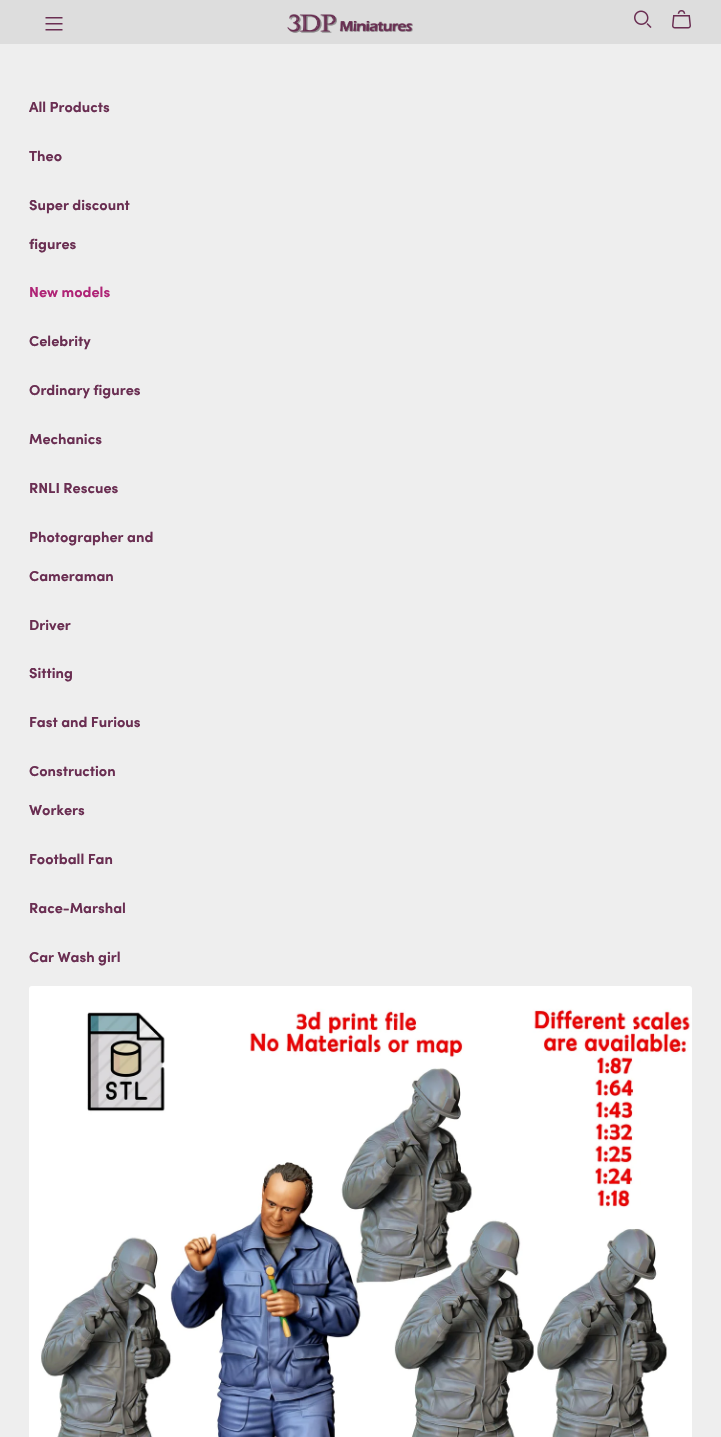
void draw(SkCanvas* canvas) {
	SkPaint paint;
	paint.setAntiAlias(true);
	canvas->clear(0xffeeeeee);
	paint.setColor(0xffdddddd);
	canvas->drawRect(SkRect::MakeXYWH(0, 0, 721, 44), paint);
	canvas->drawImageRect(SkImages::DeferredFromEncodedData(SkData::MakeFromFileName("img1.png")), SkRect::MakeXYWH(45, 17, 18, 14), SkSamplingOptions());
	canvas->drawImageRect(SkImages::DeferredFromEncodedData(SkData::MakeFromFileName("img2.png")), SkRect::MakeXYWH(287, 14, 126, 19), SkSamplingOptions());
	canvas->drawImageRect(SkImages::DeferredFromEncodedData(SkData::MakeFromFileName("img3.png")), SkRect::MakeXYWH(634, 10, 18, 18), SkSamplingOptions());
	canvas->drawImageRect(SkImages::DeferredFromEncodedData(SkData::MakeFromFileName("img4.png")), SkRect::MakeXYWH(672, 10, 19, 19), SkSamplingOptions());
	SkFont f1(fontMgr->matchFamilyStyle("Sofia", SkFontStyle::Bold()), 14.5);
	f1.setSubpixel(true);
	paint.setColor(0xff6a2e52);
	canvas->drawString("All Products", 29, 112, f1, paint);
	canvas->drawString("Theo", 29, 161, f1, paint);
	canvas->drawString("Super discount", 29, 210, f1, paint);
	canvas->drawString("figures", 29, 249, f1, paint);
	paint.setColor(0xffaf2476);
	canvas->drawString("New models", 29, 297, f1, paint);
	paint.setColor(0xff6a2e52);
	canvas->drawString("Celebrity", 29, 346, f1, paint);
	canvas->drawString("Ordinary figures", 29, 395, f1, paint);
	canvas->drawString("Mechanics", 29, 444, f1, paint);
	canvas->drawString("RNLI Rescues", 29, 493, f1, paint);
	canvas->drawString("Photographer and", 29, 542, f1, paint);
	canvas->drawString("Cameraman", 29, 581, f1, paint);
	canvas->drawString("Driver", 29, 630, f1, paint);
	canvas->drawString("Sitting", 29, 678, f1, paint);
	canvas->drawString("Fast and Furious", 29, 727, f1, paint);
	canvas->drawString("Construction", 29, 776, f1, paint);
	canvas->drawString("Workers", 29, 815, f1, paint);
	canvas->drawString("Football Fan", 29, 864, f1, paint);
	canvas->drawString("Race-Marshal", 29, 913, f1, paint);
	canvas->drawString("Car Wash girl", 29, 962, f1, paint);
	canvas->drawImageRect(SkImages::DeferredFromEncodedData(SkData::MakeFromFileName("img5.png")), SkRect::MakeXYWH(29, 986, 663, 451), SkSamplingOptions());
}
